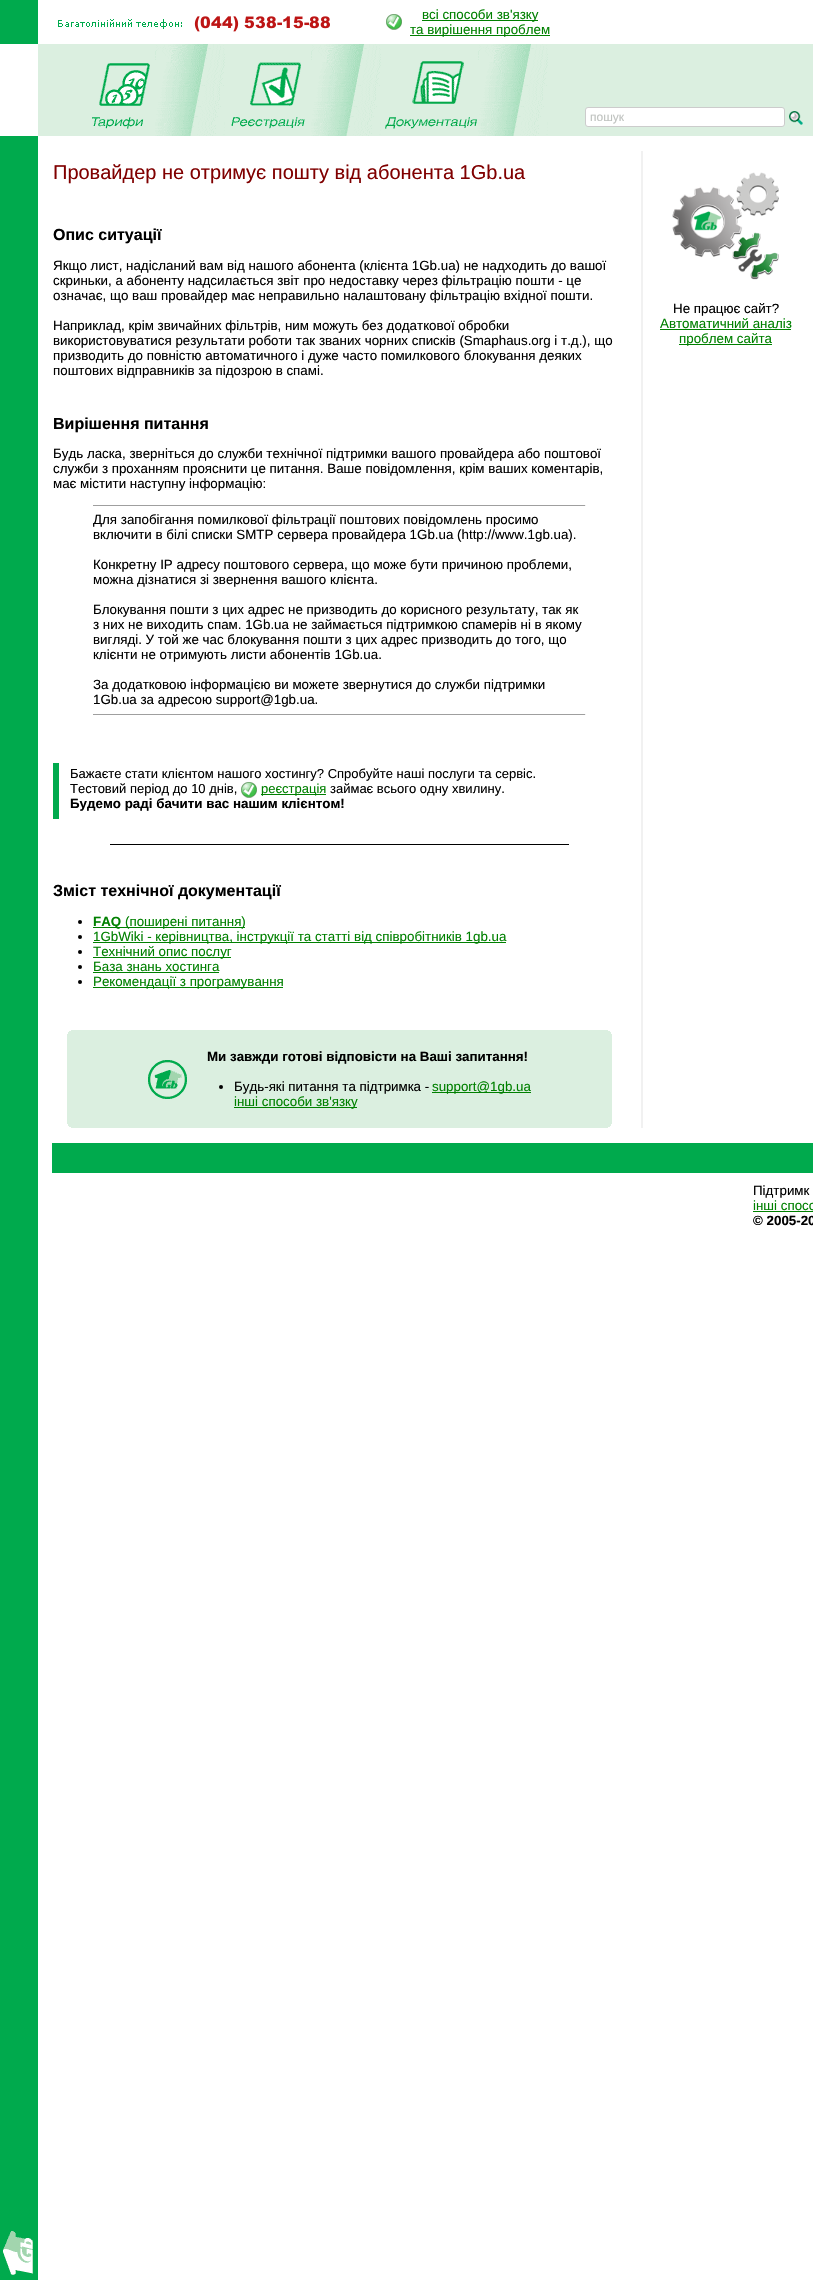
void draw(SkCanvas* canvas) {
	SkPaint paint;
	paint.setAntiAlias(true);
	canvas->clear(0xffffffff);
	paint.setColor(0xff00aa4d);
	canvas->drawRect(SkRect::MakeXYWH(0, 0, 38, 44), paint);
	canvas->drawImageRect(SkImages::DeferredFromEncodedData(SkData::MakeFromFileName("img1.png")), SkRect::MakeXYWH(58, 16, 272, 16), SkSamplingOptions());
	canvas->drawImageRect(SkImages::DeferredFromEncodedData(SkData::MakeFromFileName("img2.png")), SkRect::MakeXYWH(386, 14, 16, 16), SkSamplingOptions());
	paint.setColor(0xff008000);
	canvas->drawRect(SkRect::MakeXYWH(422, 20, 116, 1), paint);
	SkFont f1(fontMgr->matchFamilyStyle("Liberation Sans", SkFontStyle::Normal()), 13.35);
	f1.setSubpixel(true);
	canvas->drawString("всі способи зв'язку", 422, 19, f1, paint);
	canvas->drawRect(SkRect::MakeXYWH(410, 35, 140, 1), paint);
	canvas->drawString("та вирішення проблем", 410, 34, f1, paint);
	paint.setColor(0xffdbefe0);
	canvas->drawRect(SkRect::MakeXYWH(38, 44, 775, 92), paint);
	canvas->drawImageRect(SkImages::DeferredFromEncodedData(SkData::MakeFromFileName("img3.png")), SkRect::MakeXYWH(92, 63, 58, 66), SkSamplingOptions());
	canvas->drawImageRect(SkImages::DeferredFromEncodedData(SkData::MakeFromFileName("img4.png")), SkRect::MakeXYWH(155, 44, 70, 92), SkSamplingOptions());
	canvas->drawImageRect(SkImages::DeferredFromEncodedData(SkData::MakeFromFileName("img5.png")), SkRect::MakeXYWH(231, 62, 74, 67), SkSamplingOptions());
	canvas->drawImageRect(SkImages::DeferredFromEncodedData(SkData::MakeFromFileName("img4.png")), SkRect::MakeXYWH(311, 44, 70, 92), SkSamplingOptions());
	canvas->drawImageRect(SkImages::DeferredFromEncodedData(SkData::MakeFromFileName("img6.png")), SkRect::MakeXYWH(385, 61, 92, 68), SkSamplingOptions());
	canvas->drawImageRect(SkImages::DeferredFromEncodedData(SkData::MakeFromFileName("img4.png")), SkRect::MakeXYWH(478, 44, 70, 92), SkSamplingOptions());
	paint.setColor(0xffffffff);
	canvas->drawRoundRect(SkRect::MakeXYWH(585.5, 107.5, 199, 19), 2.5, 2.5, paint);
	paint.setStroke(true);
	paint.setStrokeWidth(1);
	paint.setColor(0xffcccccc);
	canvas->drawRoundRect(SkRect::MakeXYWH(585.5, 107.5, 199, 19), 2.5, 2.5, paint);
	SkFont f2(fontMgr->matchFamilyStyle("Liberation Sans", SkFontStyle::Normal()), 12);
	f2.setSubpixel(true);
	paint.setStroke(false);
	paint.setColor(0xffc0c3c0);
	canvas->drawString("пошук", 590, 121, f2, paint);
	canvas->drawImageRect(SkImages::DeferredFromEncodedData(SkData::MakeFromFileName("img7.png")), SkRect::MakeXYWH(789, 111, 14, 14), SkSamplingOptions());
	paint.setColor(0xff00aa4d);
	canvas->drawRect(SkRect::MakeXYWH(0, 136, 38, 2144), paint);
	canvas->drawImageRect(SkImages::DeferredFromEncodedData(SkData::MakeFromFileName("img8.png")), SkRect::MakeXYWH(3, 2231, 30, 44), SkSamplingOptions());
	SkFont f3(fontMgr->matchFamilyStyle("Liberation Sans", SkFontStyle::Normal()), 20);
	f3.setSubpixel(true);
	paint.setColor(0xff800000);
	canvas->drawString("Провайдер не отримує пошту від абонента 1Gb.ua", 53, 179, f3, paint);
	SkFont f4(fontMgr->matchFamilyStyle("Liberation Sans", SkFontStyle::Bold()), 16);
	f4.setSubpixel(true);
	paint.setColor(0xff000000);
	canvas->drawString("Опис ситуації", 53, 240, f4, paint);
	canvas->drawString("Якщо лист, надісланий вам від нашого абонента (клієнта 1Gb.ua) не надходить до вашої", 53, 270, f1, paint);
	canvas->drawString("скриньки, а абоненту надсилається звіт про недоставку через фільтрацію пошти - це", 53, 285, f1, paint);
	canvas->drawString("означає, що ваш провайдер має неправильно налаштовану фільтрацію вхідної пошти.", 53, 300, f1, paint);
	canvas->drawString("Наприклад, крім звичайних фільтрів, ним можуть без додаткової обробки", 53, 330, f1, paint);
	canvas->drawString("використовуватися результати роботи так званих чорних списків (Smaphaus.org і т.д.), що", 53, 345, f1, paint);
	canvas->drawString("призводить до повністю автоматичного і дуже часто помилкового блокування деяких", 53, 360, f1, paint);
	canvas->drawString("поштових відправників за підозрою в спамі.", 53, 375, f1, paint);
	canvas->drawString("Вирішення питання", 53, 429, f4, paint);
	canvas->drawString("Будь ласка, зверніться до служби технічної підтримки вашого провайдера або поштової", 53, 458, f1, paint);
	canvas->drawString("служби з проханням прояснити це питання. Ваше повідомлення, крім ваших коментарів,", 53, 473, f1, paint);
	canvas->drawString("має містити наступну інформацію:", 53, 488, f1, paint);
	paint.setColor(0xff9f9f9f);
	canvas->drawRect(SkRect::MakeXYWH(93, 505, 493, 1), paint);
	paint.setColor(0xffeeeeee);
	canvas->drawRect(SkRect::MakeXYWH(585, 505, 1, 1), paint);
	paint.setColor(0xff000000);
	canvas->drawString("Для запобігання помилкової фільтрації поштових повідомлень просимо", 93, 524, f1, paint);
	canvas->drawString("включити в білі списки SMTP сервера провайдера 1Gb.ua (http://www.1gb.ua).", 93, 539, f1, paint);
	canvas->drawString("Конкретну IP адресу поштового сервера, що може бути причиною проблеми,", 93, 569, f1, paint);
	canvas->drawString("можна дізнатися зі звернення вашого клієнта.", 93, 584, f1, paint);
	canvas->drawString("Блокування пошти з цих адрес не призводить до корисного результату, так як", 93, 614, f1, paint);
	canvas->drawString("з них не виходить спам. 1Gb.ua не займається підтримкою спамерів ні в якому", 93, 629, f1, paint);
	canvas->drawString("вигляді. У той же час блокування пошти з цих адрес призводить до того, що", 93, 644, f1, paint);
	canvas->drawString("клієнти не отримують листи абонентів 1Gb.ua.", 93, 659, f1, paint);
	canvas->drawString("За додатковою інформацією ви можете звернутися до служби підтримки", 93, 689, f1, paint);
	canvas->drawString("1Gb.ua за адресою support@1gb.ua.", 93, 704, f1, paint);
	paint.setColor(0xff9f9f9f);
	canvas->drawRect(SkRect::MakeXYWH(93, 714, 493, 1), paint);
	paint.setColor(0xffeeeeee);
	canvas->drawRect(SkRect::MakeXYWH(585, 714, 1, 1), paint);
	paint.setColor(0xff00aa4d);
	canvas->drawRect(SkRect::MakeXYWH(53, 763, 6, 56), paint);
	SkFont f5(fontMgr->matchFamilyStyle("Liberation Sans", SkFontStyle::Normal()), 13);
	f5.setSubpixel(true);
	paint.setColor(0xff000000);
	canvas->drawString("Бажаєте стати клієнтом нашого хостингу? Спробуйте наші послуги та сервіс.", 70, 778, f5, paint);
	canvas->drawString("Тестовий період до 10 днів,", 70, 793, f5, paint);
	canvas->drawImageRect(SkImages::DeferredFromEncodedData(SkData::MakeFromFileName("img9.png")), SkRect::MakeXYWH(241, 782, 16, 16), SkSamplingOptions());
	paint.setColor(0xff008000);
	canvas->drawRect(SkRect::MakeXYWH(261, 794, 65, 1), paint);
	canvas->drawString("реєстрація", 261, 793, f5, paint);
	paint.setColor(0xff000000);
	canvas->drawString("займає всього одну хвилину.", 330, 793, f5, paint);
	SkFont f6(fontMgr->matchFamilyStyle("Liberation Sans", SkFontStyle::Bold()), 13.35);
	f6.setSubpixel(true);
	canvas->drawString("Будемо раді бачити вас нашим клієнтом!", 70, 808, f6, paint);
	canvas->drawRect(SkRect::MakeXYWH(110, 844, 459, 1), paint);
	canvas->drawString("Зміст технічної документації", 53, 896, f4, paint);
	canvas->drawCircle(80, 922, 2, paint);
	paint.setColor(0xff008000);
	canvas->drawRect(SkRect::MakeXYWH(93, 927, 152, 1), paint);
	canvas->drawString("FAQ", 93, 926, f6, paint);
	canvas->drawString("(поширені питання)", 125, 926, f1, paint);
	paint.setColor(0xff000000);
	canvas->drawCircle(80, 937, 2, paint);
	paint.setColor(0xff008000);
	canvas->drawRect(SkRect::MakeXYWH(93, 942, 413, 1), paint);
	canvas->drawString("1GbWiki - керівництва, інструкції та статті від співробітників 1gb.ua", 93, 941, f1, paint);
	paint.setColor(0xff000000);
	canvas->drawCircle(80, 952, 2, paint);
	paint.setColor(0xff008000);
	canvas->drawRect(SkRect::MakeXYWH(93, 957, 138, 1), paint);
	canvas->drawString("Технічний опис послуг", 93, 956, f1, paint);
	paint.setColor(0xff000000);
	canvas->drawCircle(80, 967, 2, paint);
	paint.setColor(0xff008000);
	canvas->drawString("База знань хостинга", 93, 971, f1, paint);
	canvas->drawRect(SkRect::MakeXYWH(93, 972, 126, 1), paint);
	paint.setColor(0xff000000);
	canvas->drawCircle(80, 982, 2, paint);
	paint.setColor(0xff008000);
	canvas->drawRect(SkRect::MakeXYWH(93, 987, 190, 1), paint);
	canvas->drawString("Рекомендації з програмування", 93, 986, f1, paint);
	paint.setColor(0xffdbefe0);
	canvas->drawRect(SkRect::MakeXYWH(67, 1030, 545, 98), paint);
	canvas->drawImageRect(SkImages::DeferredFromEncodedData(SkData::MakeFromFileName("img10.png")), SkRect::MakeXYWH(67, 1030, 4, 4), SkSamplingOptions());
	canvas->drawImageRect(SkImages::DeferredFromEncodedData(SkData::MakeFromFileName("img11.png")), SkRect::MakeXYWH(608, 1030, 4, 4), SkSamplingOptions());
	canvas->drawImageRect(SkImages::DeferredFromEncodedData(SkData::MakeFromFileName("img12.png")), SkRect::MakeXYWH(148, 1060, 39, 39), SkSamplingOptions());
	paint.setColor(0xff000000);
	canvas->drawString("Ми завжди готові відповісти на Ваші запитання!", 207, 1061, f6, paint);
	canvas->drawCircle(221, 1087, 2, paint);
	canvas->drawString("Будь-які питання та підтримка -", 234, 1091, f1, paint);
	paint.setColor(0xff008000);
	canvas->drawRect(SkRect::MakeXYWH(432, 1092, 99, 1), paint);
	canvas->drawString("support@1gb.ua", 432, 1091, f1, paint);
	canvas->drawRect(SkRect::MakeXYWH(234, 1107, 123, 1), paint);
	canvas->drawString("інші способи зв'язку", 234, 1106, f1, paint);
	canvas->drawImageRect(SkImages::DeferredFromEncodedData(SkData::MakeFromFileName("img13.png")), SkRect::MakeXYWH(67, 1124, 4, 4), SkSamplingOptions());
	canvas->drawImageRect(SkImages::DeferredFromEncodedData(SkData::MakeFromFileName("img14.png")), SkRect::MakeXYWH(608, 1124, 4, 4), SkSamplingOptions());
	paint.setColor(0xfff1f1f1);
	canvas->drawRect(SkRect::MakeXYWH(641, 151, 2, 977), paint);
	canvas->drawImageRect(SkImages::DeferredFromEncodedData(SkData::MakeFromFileName("img15.png")), SkRect::MakeXYWH(672, 172, 107, 108), SkSamplingOptions());
	paint.setColor(0xff000000);
	canvas->drawString("Не працює сайт?", 673, 313, f1, paint);
	paint.setColor(0xff008000);
	canvas->drawString("Автоматичний аналіз", 660, 328, f1, paint);
	canvas->drawRect(SkRect::MakeXYWH(660, 329, 131, 1), paint);
	canvas->drawRect(SkRect::MakeXYWH(679, 344, 93, 1), paint);
	canvas->drawString("проблем сайта", 679, 343, f1, paint);
	paint.setColor(0xff00aa4d);
	canvas->drawRect(SkRect::MakeXYWH(52, 1143, 761, 30), paint);
	paint.setColor(0xff000000);
	canvas->drawString("Підтримк", 753, 1195, f1, paint);
	paint.setColor(0xff008000);
	canvas->drawString("інші спосо", 753, 1210, f1, paint);
	canvas->drawRect(SkRect::MakeXYWH(753, 1211, 60, 1), paint);
	paint.setColor(0xff000000);
	canvas->drawString("© 2005-20", 753, 1225, f6, paint);
}
